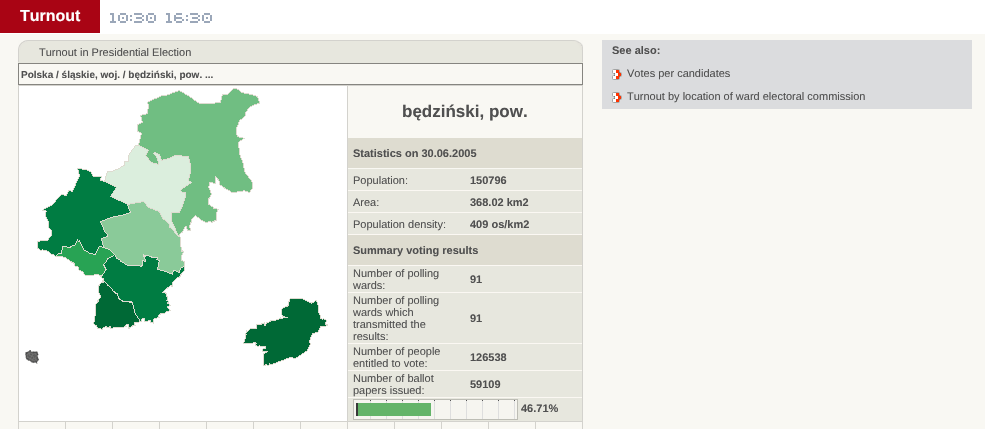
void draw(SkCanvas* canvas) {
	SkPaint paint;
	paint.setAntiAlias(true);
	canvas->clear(0xffffffff);
	paint.setColor(0xffa90414);
	canvas->drawRect(SkRect::MakeXYWH(0, 0, 100, 33), paint);
	SkFont f1(fontMgr->matchFamilyStyle("Liberation Sans", SkFontStyle::Bold()), 16);
	f1.setSubpixel(true);
	paint.setColor(0xffffffff);
	canvas->drawString("Turnout", 20, 21, f1, paint);
	canvas->drawImageRect(SkImages::DeferredFromEncodedData(SkData::MakeFromFileName("img1.png")), SkRect::MakeXYWH(110, 13, 46, 10), SkSamplingOptions());
	canvas->drawImageRect(SkImages::DeferredFromEncodedData(SkData::MakeFromFileName("img2.png")), SkRect::MakeXYWH(166, 13, 46, 10), SkSamplingOptions());
	paint.setColor(0xfff9f8f3);
	canvas->drawRect(SkRect::MakeXYWH(0, 34, 985, 395), paint);
	canvas->drawImageRect(SkImages::DeferredFromEncodedData(SkData::MakeFromFileName("img3.png")), SkRect::MakeXYWH(18, 40, 10, 10), SkSamplingOptions());
	paint.setColor(0xffe7e7de);
	canvas->drawRect(SkRect::MakeXYWH(28, 41, 544, 21), paint);
	paint.setColor(0xffd3d2cd);
	canvas->drawRect(SkRect::MakeXYWH(28, 40, 544, 1), paint);
	canvas->drawImageRect(SkImages::DeferredFromEncodedData(SkData::MakeFromFileName("img4.png")), SkRect::MakeXYWH(572, 40, 11, 10), SkSamplingOptions());
	SkFont f2(fontMgr->matchFamilyStyle("Liberation Sans", SkFontStyle::Normal()), 11);
	f2.setSubpixel(true);
	paint.setColor(0xff505050);
	canvas->drawString("Turnout in Presidential Election", 39, 56, f2, paint);
	paint.setColor(0xffe7e7de);
	canvas->drawRect(SkRect::MakeXYWH(19, 50, 9, 12), paint);
	paint.setColor(0xffd3d2cd);
	canvas->drawRect(SkRect::MakeXYWH(18, 50, 1, 12), paint);
	paint.setColor(0xffe7e7de);
	canvas->drawRect(SkRect::MakeXYWH(572, 50, 10, 12), paint);
	paint.setColor(0xffd3d2cd);
	canvas->drawRect(SkRect::MakeXYWH(582, 50, 1, 12), paint);
	paint.setColor(0xffe7e7de);
	canvas->drawRect(SkRect::MakeXYWH(18, 62, 565, 1), paint);
	paint.setStroke(true);
	paint.setStrokeWidth(1);
	paint.setColor(0xff868580);
	canvas->drawRect(SkRect::MakeXYWH(18.5, 63.5, 564, 21), paint);
	SkFont f3(fontMgr->matchFamilyStyle("Liberation Sans", SkFontStyle::Bold()), 10);
	f3.setSubpixel(true);
	paint.setStroke(false);
	paint.setColor(0xff505050);
	canvas->drawString("Polska / śląskie, woj. / będziński, pow. ...", 21, 78, f3, paint);
	paint.setColor(0xffffffff);
	canvas->drawRect(SkRect::MakeXYWH(19, 86, 328, 335), paint);
	paint.setColor(0xffd3d2cd);
	canvas->drawRect(SkRect::MakeXYWH(18, 85, 565, 1), paint);
	canvas->drawRect(SkRect::MakeXYWH(18, 85, 1, 336), paint);
	canvas->drawImageRect(SkImages::DeferredFromEncodedData(SkData::MakeFromFileName("img5.png")), SkRect::MakeXYWH(25, 88, 303, 278), SkSamplingOptions());
	paint.setColor(0xffe7e7de);
	canvas->drawRect(SkRect::MakeXYWH(348, 169, 234, 252), paint);
	paint.setColor(0xffd3d2cd);
	canvas->drawRect(SkRect::MakeXYWH(582, 85, 1, 336), paint);
	canvas->drawRect(SkRect::MakeXYWH(347, 85, 1, 336), paint);
	SkFont f4(fontMgr->matchFamilyStyle("Liberation Sans", SkFontStyle::Bold()), 17);
	f4.setSubpixel(true);
	paint.setColor(0xff505050);
	canvas->drawString("będziński, pow.", 402, 117, f4, paint);
	paint.setColor(0xffdedcd0);
	canvas->drawRect(SkRect::MakeXYWH(348, 138, 234, 30), paint);
	SkFont f5(fontMgr->matchFamilyStyle("Liberation Sans", SkFontStyle::Bold()), 11);
	f5.setSubpixel(true);
	paint.setColor(0xff505050);
	canvas->drawString("Statistics on 30.06.2005", 353, 157, f5, paint);
	canvas->drawString("Population:", 353, 184, f2, paint);
	canvas->drawString("150796", 470, 184, f5, paint);
	paint.setColor(0xfffbf8f3);
	canvas->drawRect(SkRect::MakeXYWH(348, 190, 234, 1), paint);
	paint.setColor(0xff505050);
	canvas->drawString("Area:", 353, 206, f2, paint);
	canvas->drawString("368.02 km2", 470, 206, f5, paint);
	paint.setColor(0xfffbf8f3);
	canvas->drawRect(SkRect::MakeXYWH(348, 212, 234, 1), paint);
	paint.setColor(0xff505050);
	canvas->drawString("Population density:", 353, 228, f2, paint);
	canvas->drawString("409 os/km2", 470, 228, f5, paint);
	paint.setColor(0xffdedcd0);
	canvas->drawRect(SkRect::MakeXYWH(348, 235, 234, 30), paint);
	paint.setColor(0xfffbf8f3);
	canvas->drawRect(SkRect::MakeXYWH(348, 234, 234, 1), paint);
	paint.setColor(0xff505050);
	canvas->drawString("Summary voting results", 353, 254, f5, paint);
	paint.setColor(0xfffbf8f3);
	canvas->drawRect(SkRect::MakeXYWH(348, 265, 234, 1), paint);
	paint.setColor(0xff505050);
	canvas->drawString("Number of polling", 353, 277, f2, paint);
	canvas->drawString("wards:", 353, 289, f2, paint);
	canvas->drawString("91", 470, 283, f5, paint);
	paint.setColor(0xfffbf8f3);
	canvas->drawRect(SkRect::MakeXYWH(348, 292, 234, 1), paint);
	paint.setColor(0xff505050);
	canvas->drawString("Number of polling", 353, 304, f2, paint);
	canvas->drawString("wards which", 353, 316, f2, paint);
	canvas->drawString("transmitted the", 353, 328, f2, paint);
	canvas->drawString("results:", 353, 340, f2, paint);
	canvas->drawString("91", 470, 322, f5, paint);
	paint.setColor(0xfffbf8f3);
	canvas->drawRect(SkRect::MakeXYWH(348, 343, 234, 1), paint);
	paint.setColor(0xff505050);
	canvas->drawString("Number of people", 353, 355, f2, paint);
	canvas->drawString("entitled to vote:", 353, 367, f2, paint);
	canvas->drawString("126538", 470, 361, f5, paint);
	paint.setColor(0xfffbf8f3);
	canvas->drawRect(SkRect::MakeXYWH(348, 370, 234, 1), paint);
	paint.setColor(0xff505050);
	canvas->drawString("Number of ballot", 353, 382, f2, paint);
	canvas->drawString("papers issued:", 353, 394, f2, paint);
	canvas->drawString("59109", 470, 388, f5, paint);
	paint.setColor(0xfffbf8f3);
	canvas->drawRect(SkRect::MakeXYWH(348, 397, 234, 1), paint);
	canvas->drawImageRect(SkImages::DeferredFromEncodedData(SkData::MakeFromFileName("img6.png")), SkRect::MakeXYWH(354, 400, 163, 19), SkSamplingOptions());
	paint.setStroke(true);
	paint.setColor(0xffbdbdb5);
	canvas->drawRect(SkRect::MakeXYWH(353.5, 399.5, 164, 20), paint);
	paint.setStroke(false);
	paint.setColor(0xff64b469);
	canvas->drawRect(SkRect::MakeXYWH(358, 403, 73, 13), paint);
	paint.setColor(0xff505050);
	canvas->drawString("46.71%", 521, 412, f5, paint);
	paint.setColor(0xffd3d2cd);
	canvas->drawRect(SkRect::MakeXYWH(18, 421, 517, 1), paint);
	canvas->drawRect(SkRect::MakeXYWH(18, 421, 1, 8), paint);
	canvas->drawRect(SkRect::MakeXYWH(65, 421, 1, 8), paint);
	canvas->drawRect(SkRect::MakeXYWH(112, 421, 1, 8), paint);
	canvas->drawRect(SkRect::MakeXYWH(159, 421, 1, 8), paint);
	canvas->drawRect(SkRect::MakeXYWH(206, 421, 1, 8), paint);
	canvas->drawRect(SkRect::MakeXYWH(253, 421, 1, 8), paint);
	canvas->drawRect(SkRect::MakeXYWH(300, 421, 1, 8), paint);
	canvas->drawRect(SkRect::MakeXYWH(347, 421, 1, 8), paint);
	canvas->drawRect(SkRect::MakeXYWH(394, 421, 1, 8), paint);
	canvas->drawRect(SkRect::MakeXYWH(441, 421, 1, 8), paint);
	canvas->drawRect(SkRect::MakeXYWH(488, 421, 1, 8), paint);
	paint.setStroke(true);
	canvas->drawRect(SkRect::MakeXYWH(535.5, 421.5, 47, 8), paint);
	paint.setStroke(false);
	paint.setColor(0xffdbdcde);
	canvas->drawRect(SkRect::MakeXYWH(602, 40, 370, 69), paint);
	paint.setColor(0xff505050);
	canvas->drawString("See also:", 612, 54, f5, paint);
	canvas->drawImageRect(SkImages::DeferredFromEncodedData(SkData::MakeFromFileName("img7.png")), SkRect::MakeXYWH(612, 69, 10, 11), SkSamplingOptions());
	canvas->drawString("Votes per candidates", 627, 77, f2, paint);
	canvas->drawImageRect(SkImages::DeferredFromEncodedData(SkData::MakeFromFileName("img7.png")), SkRect::MakeXYWH(612, 92, 10, 11), SkSamplingOptions());
	canvas->drawString("Turnout by location of ward electoral commission", 627, 100, f2, paint);
}
